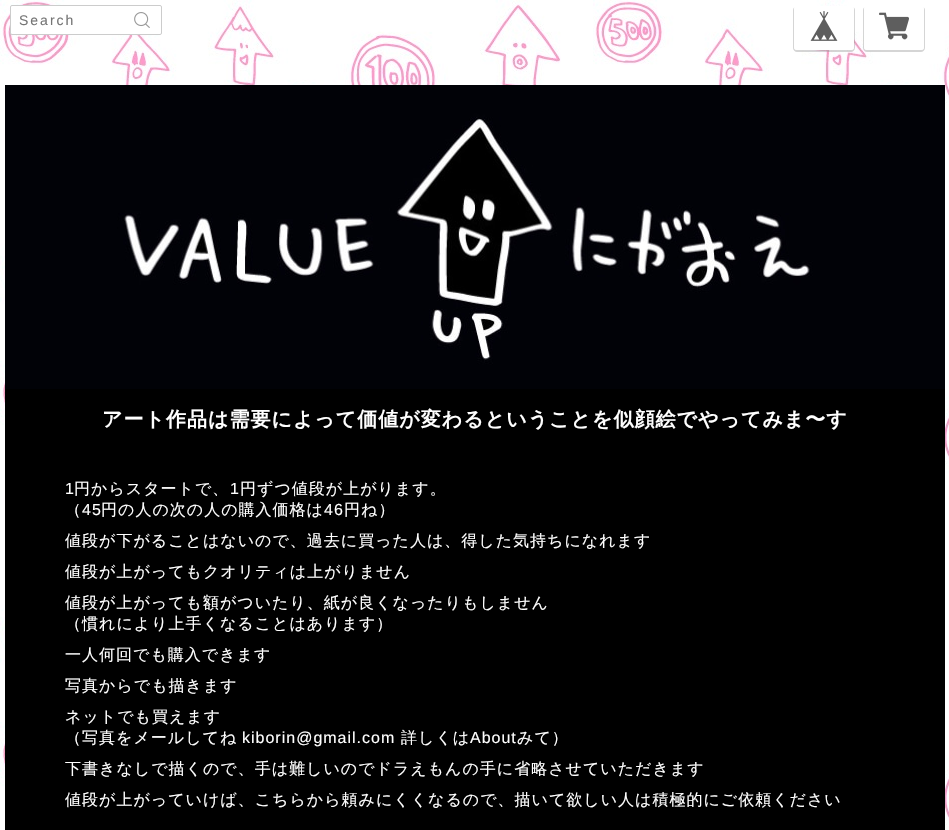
void draw(SkCanvas* canvas) {
	SkPaint paint;
	paint.setAntiAlias(true);
	auto spacedText = [&](const char* s, float x, float y, const SkFont& font, const SkPaint& ink, float letter, float word) {
		std::vector<SkGlyphID> glyphs(font.countText(s, strlen(s), SkTextEncoding::kUTF8));
		std::vector<float> xs(glyphs.size());
		font.textToGlyphs(s, strlen(s), SkTextEncoding::kUTF8, glyphs);
		font.getXPos(glyphs, xs, x);
		float extra = 0;
		for (size_t i = 0; i < glyphs.size(); i++) {
			xs[i] += extra;
			extra += letter + word * (glyphs[i] == font.unicharToGlyph(' '));
		}
		canvas->drawTextBlob(SkTextBlob::MakeFromPosHGlyphs(glyphs, xs, y, font), 0, 0, ink);
	};
	auto svgPath = [&](const char* data, bool evenOdd = false) {
		SkPath result = *SkParsePath::FromSVGString(data);
		if (evenOdd) result.setFillType(SkPathFillType::kEvenOdd);
		return result;
	};
	canvas->clear(0xffffffff);
	canvas->drawImageRect(SkImages::DeferredFromEncodedData(SkData::MakeFromFileName("img1.png")), SkRect::MakeXYWH(0, 0, 949, 830), SkSamplingOptions());
	paint.setColor(0xffffffff);
	canvas->drawRoundRect(SkRect::MakeXYWH(10.5, 5.5, 151, 29), 1.5, 1.5, paint);
	paint.setStroke(true);
	paint.setStrokeWidth(1);
	paint.setColor(0xffcccccc);
	canvas->drawRoundRect(SkRect::MakeXYWH(10.5, 5.5, 151, 29), 1.5, 1.5, paint);
	SkFont f1(fontMgr->matchFamilyStyle("Liberation Sans", SkFontStyle::Normal()), 14);
	f1.setSubpixel(true);
	paint.setStroke(false);
	paint.setColor(0xff757575);
	spacedText("Search", 19, 25, f1, paint, 2, 0);
	canvas->drawImageRect(SkImages::DeferredFromEncodedData(SkData::MakeFromFileName("img2.png")), SkRect::MakeXYWH(134, 12, 16, 16), SkSamplingOptions());
	paint.setColor(0x66969696);
	canvas->drawPath(svgPath("M797 6C795 6 793 8 793 10V48C793 50 795 52 797 52H851C853 52 855 50 855 48V10C855 8 853 6 851 6C853 6 854 7 854 9V47C854 49 853 50 851 50H797C795 50 794 49 794 47V9C794 7 795 6 797 6Z"), paint);
	paint.setColor(0xffffffff);
	canvas->drawRoundRect(SkRect::MakeXYWH(794, 6, 60, 44), 3, 3, paint);
	canvas->drawImageRect(SkImages::DeferredFromEncodedData(SkData::MakeFromFileName("img3.png")), SkRect::MakeXYWH(810, 11, 28, 30), SkSamplingOptions());
	paint.setColor(0x66969696);
	canvas->drawPath(svgPath("M867 6C865 6 863 8 863 10V48C863 50 865 52 867 52H921C923 52 925 50 925 48V10C925 8 923 6 921 6C923 6 924 7 924 9V47C924 49 923 50 921 50H867C865 50 864 49 864 47V9C864 7 865 6 867 6Z"), paint);
	paint.setColor(0xffffffff);
	canvas->drawRoundRect(SkRect::MakeXYWH(864, 6, 60, 44), 3, 3, paint);
	canvas->drawImageRect(SkImages::DeferredFromEncodedData(SkData::MakeFromFileName("img4.png")), SkRect::MakeXYWH(879, 12, 30, 28), SkSamplingOptions());
	canvas->drawImageRect(SkImages::DeferredFromEncodedData(SkData::MakeFromFileName("img5.png")), SkRect::MakeXYWH(5, 85, 940, 304), SkSamplingOptions());
	paint.setColor(0xff000000);
	canvas->drawRect(SkRect::MakeXYWH(5, 389, 940, 441), paint);
	SkFont f2(fontMgr->matchFamilyStyle("WenQuanYi Zen Hei", SkFontStyle::Bold()), 20);
	f2.setSubpixel(true);
	paint.setColor(0xffffffff);
	spacedText("アート作品は需要によって価値が変わるということを似顔絵でやってみま〜す", 102, 426, f2, paint, 1, 0);
	SkFont f3(fontMgr->matchFamilyStyle("Liberation Sans", SkFontStyle::Normal()), 16);
	f3.setSubpixel(true);
	spacedText("1", 65, 494, f3, paint, 1, 0);
	SkFont f4(fontMgr->matchFamilyStyle("WenQuanYi Zen Hei", SkFontStyle(500, SkFontStyle::kNormal_Width, SkFontStyle::kUpright_Slant)), 16);
	f4.setSubpixel(true);
	spacedText("円からスタートで、", 74, 494, f4, paint, 1, 0);
	spacedText("1", 230, 494, f3, paint, 1, 0);
	spacedText("円ずつ値段が上がります。", 240, 494, f4, paint, 1, 0);
	spacedText("（", 65, 515, f4, paint, 1, 0);
	spacedText("45", 82, 515, f3, paint, 1, 0);
	spacedText("円の人の次の人の購入価格は", 101, 515, f4, paint, 1, 0);
	spacedText("46", 324, 515, f3, paint, 1, 0);
	spacedText("円ね）", 344, 515, f4, paint, 1, 0);
	spacedText("値段が下がることはないので、過去に買った人は、得した気持ちになれます", 65, 546, f4, paint, 1, 0);
	spacedText("値段が上がってもクオリティは上がりません", 65, 577, f4, paint, 1, 0);
	spacedText("値段が上がっても額がついたり、紙が良くなったりもしません", 65, 608, f4, paint, 1, 0);
	spacedText("（慣れにより上手くなることはあります）", 65, 629, f4, paint, 1, 0);
	spacedText("一人何回でも購入できます", 65, 660, f4, paint, 1, 0);
	spacedText("写真からでも描きます", 65, 691, f4, paint, 1, 0);
	spacedText("ネットでも買えます", 65, 722, f4, paint, 1, 0);
	spacedText("（写真をメールしてね", 65, 743, f4, paint, 1, 0);
	spacedText("kiborin@gmail.com", 242, 743, f3, paint, 1, 0);
	spacedText("詳しくは", 401, 743, f4, paint, 1, 0);
	spacedText("About", 470, 743, f3, paint, 1, 0);
	spacedText("みて）", 517, 743, f4, paint, 1, 0);
	spacedText("下書きなしで描くので、手は難しいのでドラえもんの手に省略させていただきます", 65, 774, f4, paint, 1, 0);
	spacedText("値段が上がっていけば、こちらから頼みにくくなるので、描いて欲しい人は積極的にご依頼ください", 65, 805, f4, paint, 1, 0);
}
